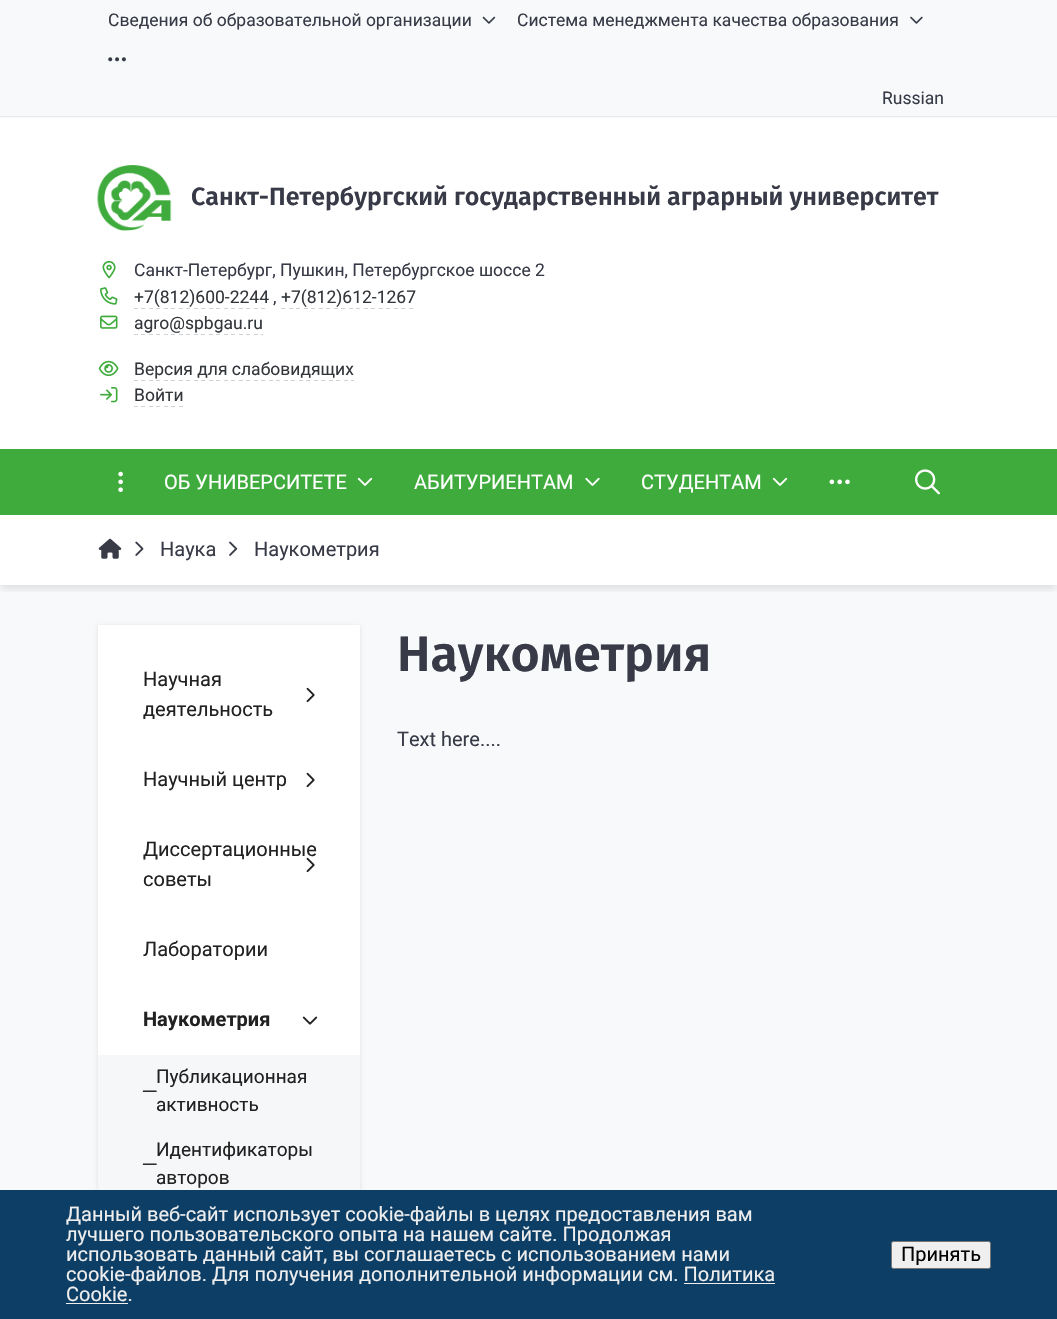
void draw(SkCanvas* canvas) {
	SkPaint paint;
	paint.setAntiAlias(true);
	canvas->clear(0xfff8f9fa);
	paint.setColor(0xffffffff);
	canvas->drawRect(SkRect::MakeXYWH(0, 118, 1057, 467), paint);
	paint.setColor(0xffebebeb);
	canvas->drawRect(SkRect::MakeXYWH(0, 116, 1057, 1), paint);
	SkFont f1(fontMgr->matchFamilyStyle("Roboto", SkFontStyle::Normal()), 17.5);
	f1.setSubpixel(true);
	paint.setColor(0xff383b47);
	canvas->drawString("Сведения об образовательной организации", 108, 26, f1, paint);
	canvas->drawImageRect(SkImages::DeferredFromEncodedData(SkData::MakeFromFileName("img1.png")), SkRect::MakeXYWH(482, 16, 14, 8), SkSamplingOptions());
	canvas->drawString("Система менеджмента качества образования", 517, 26, f1, paint);
	canvas->drawImageRect(SkImages::DeferredFromEncodedData(SkData::MakeFromFileName("img2.png")), SkRect::MakeXYWH(910, 16, 13, 8), SkSamplingOptions());
	canvas->drawImageRect(SkImages::DeferredFromEncodedData(SkData::MakeFromFileName("img3.png")), SkRect::MakeXYWH(108, 57, 18, 5), SkSamplingOptions());
	canvas->drawString("Russian", 882, 104, f1, paint);
	canvas->drawImageRect(SkImages::DeferredFromEncodedData(SkData::MakeFromFileName("img4.png")), SkRect::MakeXYWH(97, 165, 75, 66), SkSamplingOptions());
	SkFont f2(fontMgr->matchFamilyStyle("Fira Sans", SkFontStyle(600, SkFontStyle::kNormal_Width, SkFontStyle::kUpright_Slant)), 25);
	f2.setSubpixel(true);
	canvas->drawString("Санкт-Петербургский государственный аграрный университет", 191, 205, f2, paint);
	canvas->drawImageRect(SkImages::DeferredFromEncodedData(SkData::MakeFromFileName("img5.png")), SkRect::MakeXYWH(102, 260, 14, 19), SkSamplingOptions());
	canvas->drawString("Санкт-Петербург, Пушкин, Петербургское шоссе 2", 134, 276, f1, paint);
	canvas->drawImageRect(SkImages::DeferredFromEncodedData(SkData::MakeFromFileName("img6.png")), SkRect::MakeXYWH(100, 287, 18, 18), SkSamplingOptions());
	paint.setColor(0xff33373b);
	canvas->drawString("+7(812)600-2244", 134, 303, f1, paint);
	paint.setColor(0xffd0d1d2);
	canvas->drawRect(SkRect::MakeXYWH(134, 308, 4, 1), paint);
	canvas->drawRect(SkRect::MakeXYWH(141, 308, 4, 1), paint);
	canvas->drawRect(SkRect::MakeXYWH(149, 308, 4, 1), paint);
	canvas->drawRect(SkRect::MakeXYWH(156, 308, 4, 1), paint);
	canvas->drawRect(SkRect::MakeXYWH(164, 308, 4, 1), paint);
	canvas->drawRect(SkRect::MakeXYWH(171, 308, 4, 1), paint);
	canvas->drawRect(SkRect::MakeXYWH(179, 308, 4, 1), paint);
	canvas->drawRect(SkRect::MakeXYWH(186, 308, 4, 1), paint);
	canvas->drawRect(SkRect::MakeXYWH(194, 308, 4, 1), paint);
	canvas->drawRect(SkRect::MakeXYWH(201, 308, 4, 1), paint);
	canvas->drawRect(SkRect::MakeXYWH(209, 308, 4, 1), paint);
	canvas->drawRect(SkRect::MakeXYWH(216, 308, 4, 1), paint);
	canvas->drawRect(SkRect::MakeXYWH(224, 308, 4, 1), paint);
	canvas->drawRect(SkRect::MakeXYWH(231, 308, 4, 1), paint);
	canvas->drawRect(SkRect::MakeXYWH(239, 308, 4, 1), paint);
	canvas->drawRect(SkRect::MakeXYWH(246, 308, 4, 1), paint);
	canvas->drawRect(SkRect::MakeXYWH(254, 308, 4, 1), paint);
	canvas->drawRect(SkRect::MakeXYWH(261, 308, 4, 1), paint);
	paint.setColor(0xff383b47);
	canvas->drawString(",", 273, 303, f1, paint);
	paint.setColor(0xffd0d1d2);
	canvas->drawRect(SkRect::MakeXYWH(281, 308, 4, 1), paint);
	paint.setColor(0xff33373b);
	canvas->drawString("+7(812)612-1267", 281, 303, f1, paint);
	paint.setColor(0xffd0d1d2);
	canvas->drawRect(SkRect::MakeXYWH(289, 308, 4, 1), paint);
	canvas->drawRect(SkRect::MakeXYWH(296, 308, 4, 1), paint);
	canvas->drawRect(SkRect::MakeXYWH(304, 308, 4, 1), paint);
	canvas->drawRect(SkRect::MakeXYWH(311, 308, 4, 1), paint);
	canvas->drawRect(SkRect::MakeXYWH(319, 308, 4, 1), paint);
	canvas->drawRect(SkRect::MakeXYWH(326, 308, 4, 1), paint);
	canvas->drawRect(SkRect::MakeXYWH(334, 308, 4, 1), paint);
	canvas->drawRect(SkRect::MakeXYWH(341, 308, 4, 1), paint);
	canvas->drawRect(SkRect::MakeXYWH(349, 308, 4, 1), paint);
	canvas->drawRect(SkRect::MakeXYWH(356, 308, 4, 1), paint);
	canvas->drawRect(SkRect::MakeXYWH(364, 308, 4, 1), paint);
	canvas->drawRect(SkRect::MakeXYWH(371, 308, 4, 1), paint);
	canvas->drawRect(SkRect::MakeXYWH(379, 308, 4, 1), paint);
	canvas->drawRect(SkRect::MakeXYWH(386, 308, 4, 1), paint);
	canvas->drawRect(SkRect::MakeXYWH(394, 308, 4, 1), paint);
	canvas->drawRect(SkRect::MakeXYWH(401, 308, 4, 1), paint);
	canvas->drawRect(SkRect::MakeXYWH(409, 308, 4, 1), paint);
	canvas->drawImageRect(SkImages::DeferredFromEncodedData(SkData::MakeFromFileName("img7.png")), SkRect::MakeXYWH(100, 315, 18, 14), SkSamplingOptions());
	paint.setColor(0xff33373b);
	canvas->drawString("agro@spbgau.ru", 134, 329, f1, paint);
	paint.setColor(0xffd0d1d2);
	canvas->drawRect(SkRect::MakeXYWH(134, 334, 4, 1), paint);
	canvas->drawRect(SkRect::MakeXYWH(141, 334, 4, 1), paint);
	canvas->drawRect(SkRect::MakeXYWH(149, 334, 4, 1), paint);
	canvas->drawRect(SkRect::MakeXYWH(156, 334, 4, 1), paint);
	canvas->drawRect(SkRect::MakeXYWH(164, 334, 4, 1), paint);
	canvas->drawRect(SkRect::MakeXYWH(171, 334, 4, 1), paint);
	canvas->drawRect(SkRect::MakeXYWH(179, 334, 4, 1), paint);
	canvas->drawRect(SkRect::MakeXYWH(186, 334, 4, 1), paint);
	canvas->drawRect(SkRect::MakeXYWH(194, 334, 4, 1), paint);
	canvas->drawRect(SkRect::MakeXYWH(201, 334, 4, 1), paint);
	canvas->drawRect(SkRect::MakeXYWH(209, 334, 4, 1), paint);
	canvas->drawRect(SkRect::MakeXYWH(216, 334, 4, 1), paint);
	canvas->drawRect(SkRect::MakeXYWH(224, 334, 4, 1), paint);
	canvas->drawRect(SkRect::MakeXYWH(231, 334, 4, 1), paint);
	canvas->drawRect(SkRect::MakeXYWH(239, 334, 4, 1), paint);
	canvas->drawRect(SkRect::MakeXYWH(246, 334, 4, 1), paint);
	canvas->drawRect(SkRect::MakeXYWH(254, 334, 4, 1), paint);
	canvas->drawRect(SkRect::MakeXYWH(261, 334, 2, 1), paint);
	canvas->drawImageRect(SkImages::DeferredFromEncodedData(SkData::MakeFromFileName("img8.png")), SkRect::MakeXYWH(98, 360, 21, 17), SkSamplingOptions());
	paint.setColor(0xff33373b);
	canvas->drawString("Версия для слабовидящих", 134, 375, f1, paint);
	canvas->drawImageRect(SkImages::DeferredFromEncodedData(SkData::MakeFromFileName("img9.png")), SkRect::MakeXYWH(134, 380, 220, 1), SkSamplingOptions());
	canvas->drawImageRect(SkImages::DeferredFromEncodedData(SkData::MakeFromFileName("img10.png")), SkRect::MakeXYWH(100, 387, 18, 16), SkSamplingOptions());
	canvas->drawString("Войти", 134, 401, f1, paint);
	paint.setColor(0xffd0d1d2);
	canvas->drawRect(SkRect::MakeXYWH(134, 406, 4, 1), paint);
	canvas->drawRect(SkRect::MakeXYWH(141, 406, 4, 1), paint);
	canvas->drawRect(SkRect::MakeXYWH(149, 406, 4, 1), paint);
	canvas->drawRect(SkRect::MakeXYWH(156, 406, 4, 1), paint);
	canvas->drawRect(SkRect::MakeXYWH(164, 406, 4, 1), paint);
	canvas->drawRect(SkRect::MakeXYWH(171, 406, 4, 1), paint);
	canvas->drawRect(SkRect::MakeXYWH(179, 406, 4, 1), paint);
	canvas->save();
	canvas->clipRect(SkRect::MakeXYWH(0, 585, 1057, 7));
	paint.setColor(0x1a000000);
	paint.setMaskFilter(SkMaskFilter::MakeBlur(kNormal_SkBlurStyle, 4));
	canvas->drawRect(SkRect::MakeXYWH(1, 521, 1055, 68), paint);
	paint.setMaskFilter(nullptr);
	canvas->restore();
	paint.setColor(0xff3fab3c);
	canvas->drawRect(SkRect::MakeXYWH(0, 449, 1057, 66), paint);
	canvas->drawImageRect(SkImages::DeferredFromEncodedData(SkData::MakeFromFileName("img11.png")), SkRect::MakeXYWH(118, 471, 5, 21), SkSamplingOptions());
	SkFont f3(fontMgr->matchFamilyStyle("Roboto", SkFontStyle::Normal()), 20);
	f3.setSubpixel(true);
	paint.setColor(0xffffffff);
	canvas->drawString("ОБ УНИВЕРСИТЕТЕ", 164, 489, f3, paint);
	canvas->drawImageRect(SkImages::DeferredFromEncodedData(SkData::MakeFromFileName("img12.png")), SkRect::MakeXYWH(357, 477, 16, 9), SkSamplingOptions());
	canvas->drawString("АБИТУРИЕНТАМ", 414, 489, f3, paint);
	canvas->drawImageRect(SkImages::DeferredFromEncodedData(SkData::MakeFromFileName("img13.png")), SkRect::MakeXYWH(585, 477, 15, 9), SkSamplingOptions());
	canvas->drawString("СТУДЕНТАМ", 641, 489, f3, paint);
	canvas->drawImageRect(SkImages::DeferredFromEncodedData(SkData::MakeFromFileName("img12.png")), SkRect::MakeXYWH(772, 477, 16, 9), SkSamplingOptions());
	canvas->drawImageRect(SkImages::DeferredFromEncodedData(SkData::MakeFromFileName("img14.png")), SkRect::MakeXYWH(829, 479, 21, 6), SkSamplingOptions());
	canvas->drawImageRect(SkImages::DeferredFromEncodedData(SkData::MakeFromFileName("img15.png")), SkRect::MakeXYWH(915, 469, 25, 26), SkSamplingOptions());
	canvas->drawImageRect(SkImages::DeferredFromEncodedData(SkData::MakeFromFileName("img16.png")), SkRect::MakeXYWH(98, 538, 24, 21), SkSamplingOptions());
	canvas->drawImageRect(SkImages::DeferredFromEncodedData(SkData::MakeFromFileName("img17.png")), SkRect::MakeXYWH(135, 541, 9, 15), SkSamplingOptions());
	paint.setColor(0xff383b47);
	canvas->drawString("Наука", 160, 556, f3, paint);
	canvas->drawImageRect(SkImages::DeferredFromEncodedData(SkData::MakeFromFileName("img18.png")), SkRect::MakeXYWH(229, 541, 9, 15), SkSamplingOptions());
	canvas->drawString("Наукометрия", 254, 556, f3, paint);
	paint.setColor(0x1a000000);
	paint.setMaskFilter(SkMaskFilter::MakeBlur(kNormal_SkBlurStyle, 2));
	canvas->drawRect(SkRect::MakeXYWH(98, 626, 262, 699), paint);
	paint.setMaskFilter(nullptr);
	paint.setColor(0xffffffff);
	canvas->drawRect(SkRect::MakeXYWH(98, 625, 262, 430), paint);
	paint.setColor(0xff212121);
	canvas->drawString("Научная", 143, 686, f3, paint);
	canvas->drawString("деятельность", 143, 716, f3, paint);
	canvas->drawImageRect(SkImages::DeferredFromEncodedData(SkData::MakeFromFileName("img19.png")), SkRect::MakeXYWH(306, 687, 9, 16), SkSamplingOptions());
	canvas->drawString("Научный центр", 143, 786, f3, paint);
	canvas->drawImageRect(SkImages::DeferredFromEncodedData(SkData::MakeFromFileName("img19.png")), SkRect::MakeXYWH(306, 772, 9, 16), SkSamplingOptions());
	canvas->drawString("Диссертационные", 143, 856, f3, paint);
	canvas->drawString("советы", 143, 886, f3, paint);
	canvas->drawImageRect(SkImages::DeferredFromEncodedData(SkData::MakeFromFileName("img19.png")), SkRect::MakeXYWH(306, 857, 9, 16), SkSamplingOptions());
	canvas->drawString("Лаборатории", 143, 956, f3, paint);
	SkFont f4(fontMgr->matchFamilyStyle("Roboto", SkFontStyle::Bold()), 20);
	f4.setSubpixel(true);
	canvas->drawString("Наукометрия", 143, 1026, f4, paint);
	canvas->drawImageRect(SkImages::DeferredFromEncodedData(SkData::MakeFromFileName("img20.png")), SkRect::MakeXYWH(302, 1016, 16, 9), SkSamplingOptions());
	paint.setColor(0xfff6f7f8);
	canvas->drawRect(SkRect::MakeXYWH(98, 1055, 262, 135), paint);
	SkFont f5(fontMgr->matchFamilyStyle("Liberation Sans", SkFontStyle::Normal()), 19);
	f5.setSubpixel(true);
	paint.setColor(0xff212121);
	canvas->drawString("─", 143, 1097, f5, paint);
	SkFont f6(fontMgr->matchFamilyStyle("Roboto", SkFontStyle::Normal()), 19);
	f6.setSubpixel(true);
	canvas->drawString("Публикационная", 156, 1083, f6, paint);
	canvas->drawString("активность", 156, 1111, f6, paint);
	canvas->drawString("─", 143, 1170, f5, paint);
	canvas->drawString("Идентификаторы", 156, 1156, f6, paint);
	canvas->drawString("авторов", 156, 1184, f6, paint);
	SkFont f7(fontMgr->matchFamilyStyle("Fira Sans", SkFontStyle(600, SkFontStyle::kNormal_Width, SkFontStyle::kUpright_Slant)), 50);
	f7.setSubpixel(true);
	paint.setColor(0xff383b47);
	canvas->drawString("Наукометрия", 397, 671, f7, paint);
	canvas->drawString("Text here....", 397, 746, f3, paint);
	paint.setColor(0xff0d3e66);
	canvas->drawRect(SkRect::MakeXYWH(0, 1190, 1057, 129), paint);
	paint.setColor(0xffeeeeee);
	canvas->drawString("Данный веб-сайт использует cookie-файлы в целях предоставления вам", 66, 1221, f3, paint);
	canvas->drawString("лучшего пользовательского опыта на нашем сайте. Продолжая", 66, 1241, f3, paint);
	canvas->drawString("использовать данный сайт, вы соглашаетесь с использованием нами", 66, 1261, f3, paint);
	canvas->drawString("cookie-файлов. Для получения дополнительной информации см. Политика", 66, 1281, f3, paint);
	canvas->drawString("Cookie.", 66, 1301, f3, paint);
	canvas->drawRect(SkRect::MakeXYWH(684, 1283, 91, 1), paint);
	canvas->drawRect(SkRect::MakeXYWH(66, 1303, 62, 1), paint);
	paint.setColor(0xffefefef);
	canvas->drawRoundRect(SkRect::MakeXYWH(891.5, 1241.5, 99, 27), 2, 2, paint);
	paint.setStroke(true);
	paint.setStrokeWidth(1);
	paint.setColor(0xff767676);
	canvas->drawRoundRect(SkRect::MakeXYWH(891.5, 1241.5, 99, 27), 2, 2, paint);
	paint.setStroke(false);
	paint.setColor(0xff000000);
	canvas->drawString("Принять", 901, 1261, f3, paint);
}
